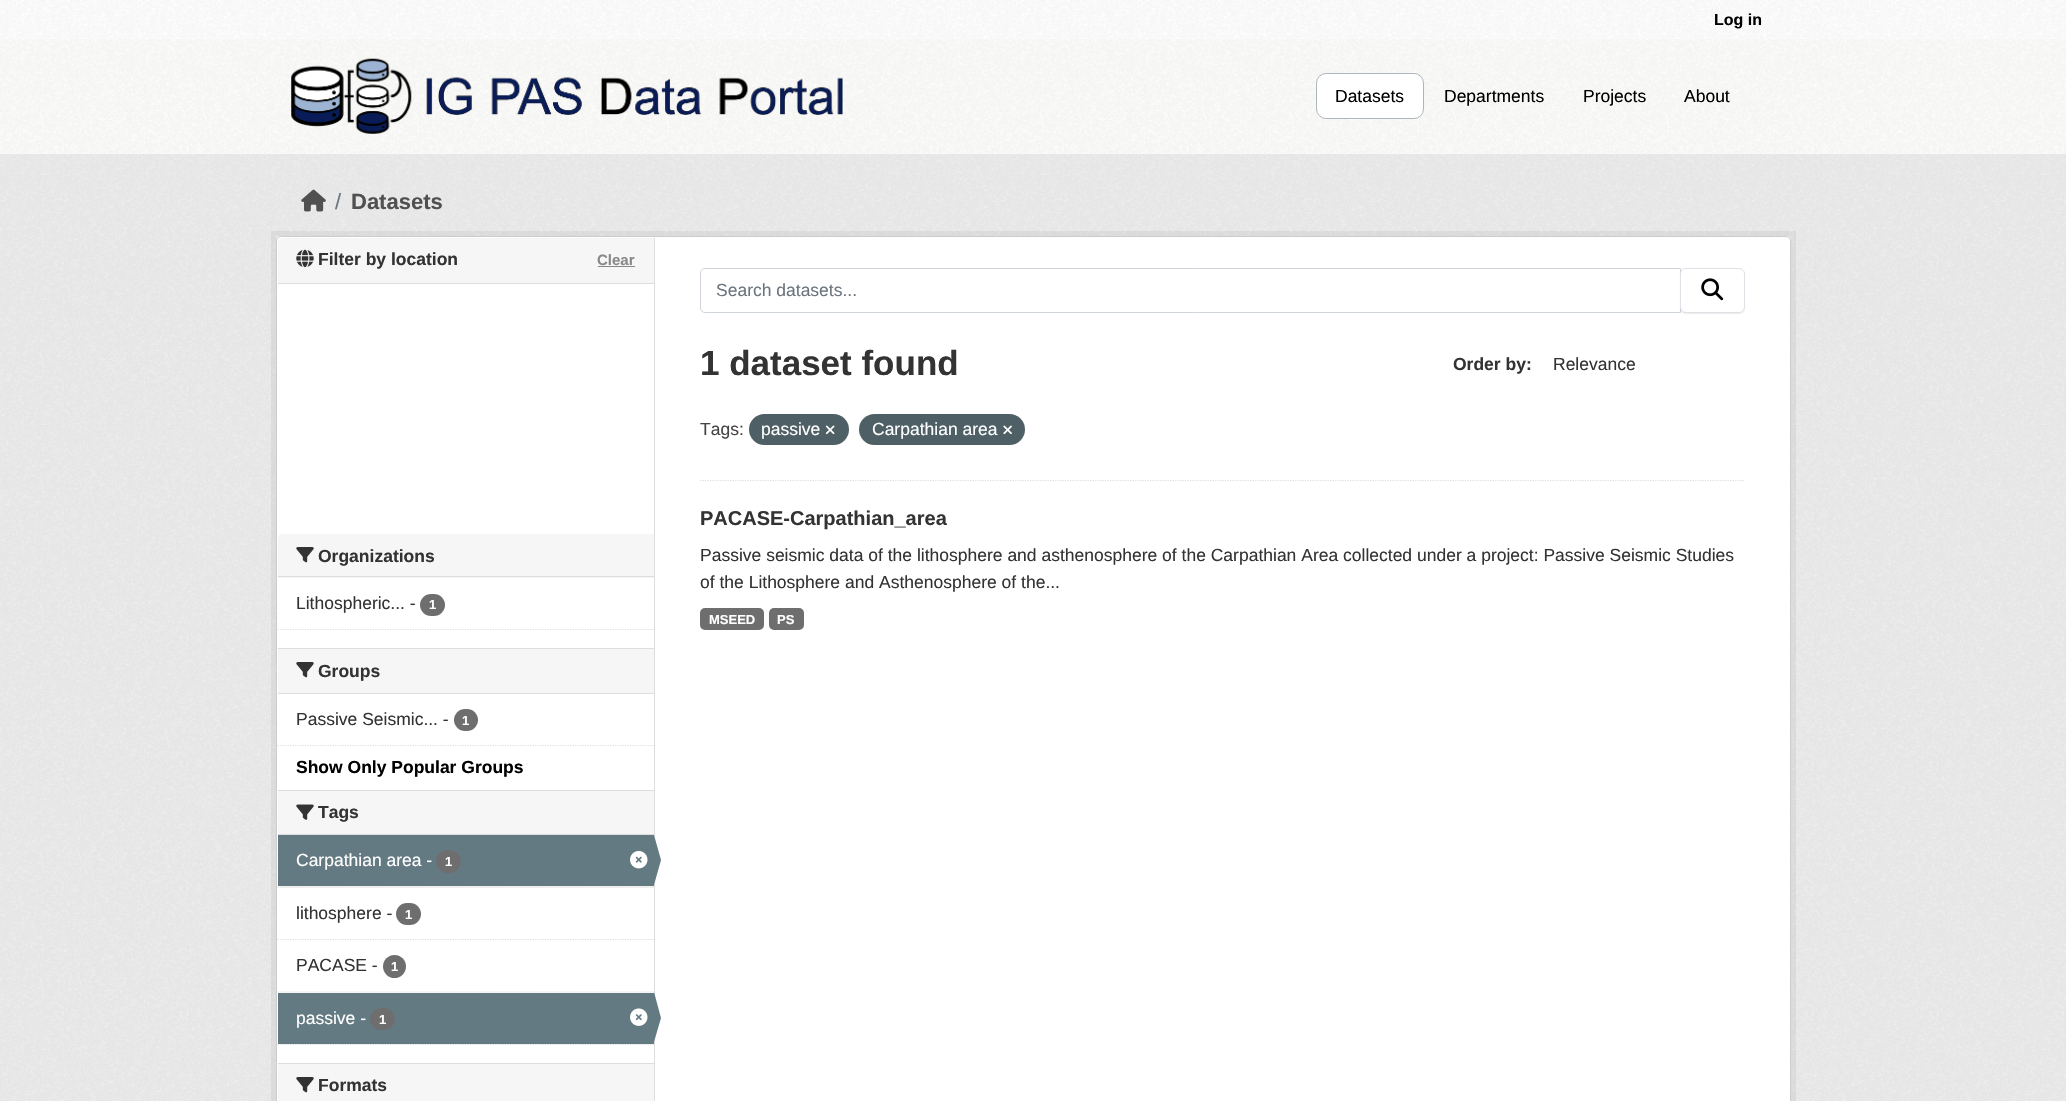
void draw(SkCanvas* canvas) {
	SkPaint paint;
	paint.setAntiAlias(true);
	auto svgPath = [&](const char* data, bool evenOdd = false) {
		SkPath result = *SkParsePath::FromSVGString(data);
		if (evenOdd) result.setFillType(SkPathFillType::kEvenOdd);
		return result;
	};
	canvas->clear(0xffffffff);
	canvas->drawImageRect(SkImages::DeferredFromEncodedData(SkData::MakeFromFileName("img1.png")), SkRect::MakeXYWH(0, 0, 2066, 39), SkSamplingOptions());
	SkFont f1(fontMgr->matchFamilyStyle("Liberation Sans", SkFontStyle::Bold()), 16);
	f1.setSubpixel(true);
	paint.setColor(0xff000000);
	canvas->drawString("Log in", 1714, 25, f1, paint);
	paint.setColor(0xfffdfdfb);
	canvas->drawRect(SkRect::MakeXYWH(0, 39, 2066, 115), paint);
	canvas->drawImageRect(SkImages::DeferredFromEncodedData(SkData::MakeFromFileName("img2.png")), SkRect::MakeXYWH(0, 39, 2066, 115), SkSamplingOptions());
	canvas->drawImageRect(SkImages::DeferredFromEncodedData(SkData::MakeFromFileName("img3.png")), SkRect::MakeXYWH(291, 58, 552, 76), SkSamplingOptions());
	paint.setColor(0xffffffff);
	canvas->drawRoundRect(SkRect::MakeXYWH(1316.5, 73.5, 107, 45), 9.5, 9.5, paint);
	paint.setStroke(true);
	paint.setStrokeWidth(1);
	paint.setColor(0xffadb5bd);
	canvas->drawRoundRect(SkRect::MakeXYWH(1316.5, 73.5, 107, 45), 9.5, 9.5, paint);
	SkFont f2(fontMgr->matchFamilyStyle("Liberation Sans", SkFontStyle::Normal()), 17.5);
	f2.setSubpixel(true);
	paint.setStroke(false);
	paint.setColor(0xff000000);
	canvas->drawString("Datasets", 1335, 102, f2, paint);
	canvas->drawString("Departments", 1444, 102, f2, paint);
	canvas->drawString("Projects", 1583, 102, f2, paint);
	canvas->drawString("About", 1684, 102, f2, paint);
	paint.setColor(0xffeeeeee);
	canvas->drawRect(SkRect::MakeXYWH(0, 154, 2066, 947), paint);
	canvas->drawImageRect(SkImages::DeferredFromEncodedData(SkData::MakeFromFileName("img4.png")), SkRect::MakeXYWH(0, 154, 2066, 947), SkSamplingOptions());
	canvas->drawImageRect(SkImages::DeferredFromEncodedData(SkData::MakeFromFileName("img5.png")), SkRect::MakeXYWH(301, 189, 25, 23), SkSamplingOptions());
	SkFont f3(fontMgr->matchFamilyStyle("Liberation Sans", SkFontStyle::Normal()), 22);
	f3.setSubpixel(true);
	paint.setColor(0xff6c757d);
	canvas->drawString("/", 335, 209, f3, paint);
	SkFont f4(fontMgr->matchFamilyStyle("Liberation Sans", SkFontStyle::Bold()), 22);
	f4.setSubpixel(true);
	paint.setColor(0xff505050);
	canvas->drawString("Datasets", 351, 209, f4, paint);
	paint.setStroke(true);
	paint.setStrokeWidth(5);
	paint.setColor(0x0d000000);
	canvas->drawRect(SkRect::MakeXYWH(273.5, 233.5, 1520, 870), paint);
	paint.setStroke(false);
	paint.setColor(0xffffffff);
	canvas->drawRoundRect(SkRect::MakeXYWH(276.5, 236.5, 1514, 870), 4.5, 4.5, paint);
	paint.setStroke(true);
	paint.setStrokeWidth(1);
	paint.setColor(0xffcccccc);
	canvas->drawRoundRect(SkRect::MakeXYWH(276.5, 236.5, 1514, 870), 4.5, 4.5, paint);
	paint.setStroke(false);
	paint.setColor(0xfff6f6f6);
	canvas->drawPath(svgPath("M282 238H654V284H278V242C278 240 280 238 282 238Z"), paint);
	paint.setColor(0xffdddddd);
	canvas->drawRect(SkRect::MakeXYWH(278, 283, 376, 1), paint);
	canvas->drawImageRect(SkImages::DeferredFromEncodedData(SkData::MakeFromFileName("img6.png")), SkRect::MakeXYWH(296, 249, 18, 19), SkSamplingOptions());
	SkFont f5(fontMgr->matchFamilyStyle("Liberation Sans", SkFontStyle::Bold()), 17.5);
	f5.setSubpixel(true);
	paint.setColor(0xff333333);
	canvas->drawString("Filter by location", 318, 265, f5, paint);
	SkFont f6(fontMgr->matchFamilyStyle("Liberation Sans", SkFontStyle::Bold()), 15);
	f6.setSubpixel(true);
	paint.setColor(0xff888888);
	canvas->drawString("Clear", 597, 265, f6, paint);
	canvas->drawRect(SkRect::MakeXYWH(598, 266, 37, 1), paint);
	paint.setColor(0xfff6f6f6);
	canvas->drawPath(svgPath("M282 534H654V578H278V538C278 536 280 534 282 534Z"), paint);
	paint.setColor(0xffdddddd);
	canvas->drawRect(SkRect::MakeXYWH(278, 576, 376, 1), paint);
	canvas->drawImageRect(SkImages::DeferredFromEncodedData(SkData::MakeFromFileName("img7.png")), SkRect::MakeXYWH(296, 547, 18, 16), SkSamplingOptions());
	paint.setColor(0xff333333);
	canvas->drawString("Organizations", 318, 562, f5, paint);
	canvas->drawString("Lithospheric... -", 296, 609, f2, paint);
	paint.setColor(0xff6e6e6e);
	canvas->drawRoundRect(SkRect::MakeXYWH(420, 594, 25, 22), 11, 11, paint);
	SkFont f7(fontMgr->matchFamilyStyle("Liberation Sans", SkFontStyle::Bold()), 13);
	f7.setSubpixel(true);
	paint.setColor(0xffffffff);
	canvas->drawString("1", 429, 609, f7, paint);
	paint.setStroke(true);
	paint.setStrokeWidth(1.2);
	paint.setColor(0xffdddddd);
	paint.setPathEffect(SkDashPathEffect::Make({{1.25f, 1.25f}}, 0));
	canvas->drawPath(svgPath("M277.5 629.5H654"), paint);
	paint.setPathEffect(nullptr);
	paint.setStroke(false);
	paint.setColor(0xfff6f6f6);
	canvas->drawRect(SkRect::MakeXYWH(278, 649, 376, 44), paint);
	paint.setColor(0xffdddddd);
	canvas->drawRect(SkRect::MakeXYWH(278, 648, 376, 1), paint);
	canvas->drawRect(SkRect::MakeXYWH(278, 693, 376, 1), paint);
	canvas->drawImageRect(SkImages::DeferredFromEncodedData(SkData::MakeFromFileName("img7.png")), SkRect::MakeXYWH(296, 662, 18, 16), SkSamplingOptions());
	paint.setColor(0xff333333);
	canvas->drawString("Groups", 318, 677, f5, paint);
	canvas->drawString("Passive Seismic... -", 296, 725, f2, paint);
	paint.setColor(0xff6e6e6e);
	canvas->drawRoundRect(SkRect::MakeXYWH(454, 709, 24, 22), 11, 11, paint);
	paint.setColor(0xffffffff);
	canvas->drawString("1", 462, 725, f7, paint);
	paint.setStroke(true);
	paint.setColor(0xffdddddd);
	paint.setPathEffect(SkDashPathEffect::Make({{1.25f, 1.25f}}, 0));
	canvas->drawPath(svgPath("M277.5 745.5H654"), paint);
	paint.setPathEffect(nullptr);
	paint.setStroke(false);
	paint.setColor(0xff000000);
	canvas->drawString("Show Only Popular Groups", 296, 773, f5, paint);
	paint.setColor(0xfff6f6f6);
	canvas->drawRect(SkRect::MakeXYWH(278, 791, 376, 43), paint);
	paint.setColor(0xffdddddd);
	canvas->drawRect(SkRect::MakeXYWH(278, 790, 376, 1), paint);
	canvas->drawRect(SkRect::MakeXYWH(278, 834, 376, 1), paint);
	canvas->drawImageRect(SkImages::DeferredFromEncodedData(SkData::MakeFromFileName("img8.png")), SkRect::MakeXYWH(296, 804, 18, 16), SkSamplingOptions());
	paint.setColor(0xff333333);
	canvas->drawString("Tags", 318, 818, f5, paint);
	paint.setColor(0xfff6f6f6);
	canvas->drawRect(SkRect::MakeXYWH(278, 886, 376, 2), paint);
	paint.setStroke(true);
	paint.setColor(0xffdddddd);
	paint.setPathEffect(SkDashPathEffect::Make({{1.25f, 1.25f}}, 0));
	canvas->drawPath(svgPath("M277.5 887H654"), paint);
	paint.setPathEffect(nullptr);
	paint.setStroke(false);
	paint.setColor(0xff647a82);
	canvas->drawRect(SkRect::MakeXYWH(278, 835, 376, 51), paint);
	paint.setColor(0xffffffff);
	canvas->drawString("Carpathian area -", 296, 866, f2, paint);
	paint.setColor(0xff6e6e6e);
	canvas->drawRoundRect(SkRect::MakeXYWH(436, 850, 25, 23), 11.5, 11.5, paint);
	paint.setColor(0xffffffff);
	canvas->drawString("1", 445, 866, f7, paint);
	canvas->drawImageRect(SkImages::DeferredFromEncodedData(SkData::MakeFromFileName("img9.png")), SkRect::MakeXYWH(630, 850, 18, 19), SkSamplingOptions());
	paint.setColor(0xffdddddd);
	canvas->drawRect(SkRect::MakeXYWH(654, 238, 1, 863), paint);
	paint.setColor(0xff647a82);
	canvas->drawPath(svgPath("M654 885V835L661 860Z"), paint);
	paint.setStroke(true);
	paint.setColor(0xffdddddd);
	paint.setPathEffect(SkDashPathEffect::Make({{1.25f, 1.25f}}, 0));
	canvas->drawPath(svgPath("M277.5 939.5H654"), paint);
	paint.setPathEffect(nullptr);
	paint.setStroke(false);
	paint.setColor(0xff333333);
	canvas->drawString("lithosphere -", 296, 919, f2, paint);
	paint.setColor(0xff6e6e6e);
	canvas->drawRoundRect(SkRect::MakeXYWH(396, 903, 25, 22), 11, 11, paint);
	paint.setColor(0xffffffff);
	canvas->drawString("1", 405, 919, f7, paint);
	paint.setStroke(true);
	paint.setColor(0xffdddddd);
	paint.setPathEffect(SkDashPathEffect::Make({{1.25f, 1.25f}}, 0));
	canvas->drawPath(svgPath("M277.5 992H654"), paint);
	paint.setPathEffect(nullptr);
	paint.setStroke(false);
	paint.setColor(0xff333333);
	canvas->drawString("PACASE -", 296, 971, f2, paint);
	paint.setColor(0xff6e6e6e);
	canvas->drawCircle(394.5, 966.5, 11.5, paint);
	paint.setColor(0xffffffff);
	canvas->drawString("1", 391, 971, f7, paint);
	paint.setStroke(true);
	paint.setColor(0xffdddddd);
	paint.setPathEffect(SkDashPathEffect::Make({{1.25f, 1.25f}}, 0));
	canvas->drawPath(svgPath("M277.5 1044.5H654"), paint);
	paint.setPathEffect(nullptr);
	paint.setStroke(false);
	paint.setColor(0xff647a82);
	canvas->drawRect(SkRect::MakeXYWH(278, 993, 376, 51), paint);
	paint.setColor(0xffffffff);
	canvas->drawString("passive -", 296, 1024, f2, paint);
	paint.setColor(0xff6e6e6e);
	canvas->drawRoundRect(SkRect::MakeXYWH(370, 1008, 25, 22), 11, 11, paint);
	paint.setColor(0xffffffff);
	canvas->drawString("1", 379, 1024, f7, paint);
	canvas->drawImageRect(SkImages::DeferredFromEncodedData(SkData::MakeFromFileName("img10.png")), SkRect::MakeXYWH(630, 1008, 18, 18), SkSamplingOptions());
	paint.setColor(0xff647a82);
	canvas->drawPath(svgPath("M654 1042V992L661 1018Z"), paint);
	paint.setColor(0xfff6f6f6);
	canvas->drawRect(SkRect::MakeXYWH(278, 1064, 376, 37), paint);
	paint.setColor(0xffdddddd);
	canvas->drawRect(SkRect::MakeXYWH(278, 1063, 376, 1), paint);
	canvas->drawImageRect(SkImages::DeferredFromEncodedData(SkData::MakeFromFileName("img7.png")), SkRect::MakeXYWH(296, 1077, 18, 16), SkSamplingOptions());
	paint.setColor(0xff333333);
	canvas->drawString("Formats", 318, 1091, f5, paint);
	paint.setStroke(true);
	paint.setColor(0xffdddddd);
	paint.setPathEffect(SkDashPathEffect::Make({{1.25f, 1.25f}}, 0));
	canvas->drawPath(svgPath("M700 480.5H1745"), paint);
	paint.setPathEffect(nullptr);
	paint.setStrokeWidth(1);
	paint.setColor(0xffced4da);
	canvas->drawPath(svgPath("M705 268.5H1680.5V312.5H705C702.5 312.5 700.5 310.5 700.5 308V273C700.5 270.5 702.5 268.5 705 268.5Z"), paint);
	paint.setStroke(false);
	paint.setColor(0xff6c757d);
	canvas->drawString("Search datasets...", 716, 296, f2, paint);
	paint.setColor(0x12000000);
	paint.setMaskFilter(SkMaskFilter::MakeBlur(kNormal_SkBlurStyle, 0.5));
	canvas->drawRoundRect(SkRect::MakeXYWH(1680, 269, 65, 45), 6, 6, paint);
	paint.setMaskFilter(nullptr);
	paint.setColor(0xffffffff);
	canvas->drawRoundRect(SkRect::MakeXYWH(1680.5, 268.5, 64, 44), 5.5, 5.5, paint);
	paint.setStroke(true);
	paint.setColor(0xffdee2e6);
	canvas->drawRoundRect(SkRect::MakeXYWH(1680.5, 268.5, 64, 44), 5.5, 5.5, paint);
	canvas->drawImageRect(SkImages::DeferredFromEncodedData(SkData::MakeFromFileName("img11.png")), SkRect::MakeXYWH(1701, 278, 23, 23), SkSamplingOptions());
	SkFont f8(fontMgr->matchFamilyStyle("Liberation Sans", SkFontStyle::Bold()), 35);
	f8.setSubpixel(true);
	paint.setStroke(false);
	paint.setColor(0xff333333);
	canvas->drawString("1 dataset found", 700, 375, f8, paint);
	canvas->drawString("Order by:", 1453, 370, f5, paint);
	canvas->drawString("Relevance", 1553, 370, f2, paint);
	paint.setColor(0xff444444);
	canvas->drawString("Tags:", 700, 435, f2, paint);
	paint.setColor(0xff4e5f65);
	canvas->drawRoundRect(SkRect::MakeXYWH(749, 414, 100, 31), 15.5, 15.5, paint);
	paint.setColor(0xffffffff);
	canvas->drawString("passive", 761, 435, f2, paint);
	canvas->drawImageRect(SkImages::DeferredFromEncodedData(SkData::MakeFromFileName("img12.png")), SkRect::MakeXYWH(825, 425, 10, 10), SkSamplingOptions());
	paint.setColor(0xff4e5f65);
	canvas->drawRoundRect(SkRect::MakeXYWH(859, 414, 166, 31), 15.5, 15.5, paint);
	paint.setColor(0xffffffff);
	canvas->drawString("Carpathian area", 872, 435, f2, paint);
	canvas->drawImageRect(SkImages::DeferredFromEncodedData(SkData::MakeFromFileName("img13.png")), SkRect::MakeXYWH(1003, 425, 9, 10), SkSamplingOptions());
	SkFont f9(fontMgr->matchFamilyStyle("Liberation Sans", SkFontStyle::Bold()), 20);
	f9.setSubpixel(true);
	paint.setColor(0xff333333);
	canvas->drawString("PACASE-Carpathian_area", 700, 525, f9, paint);
	canvas->drawString("Passive seismic data of the lithosphere and asthenosphere of the Carpathian Area collected under a project: Passive Seismic Studies", 700, 561, f2, paint);
	canvas->drawString("of the Lithosphere and Asthenosphere of the...", 700, 588, f2, paint);
	paint.setColor(0xff6e6e6e);
	canvas->drawRoundRect(SkRect::MakeXYWH(700, 608, 64, 22), 5, 5, paint);
	paint.setColor(0xffffffff);
	canvas->drawString("MSEED", 709, 624, f7, paint);
	paint.setColor(0xff6e6e6e);
	canvas->drawRoundRect(SkRect::MakeXYWH(769, 608, 35, 22), 5, 5, paint);
	paint.setColor(0xffffffff);
	canvas->drawString("PS", 777, 624, f7, paint);
}
